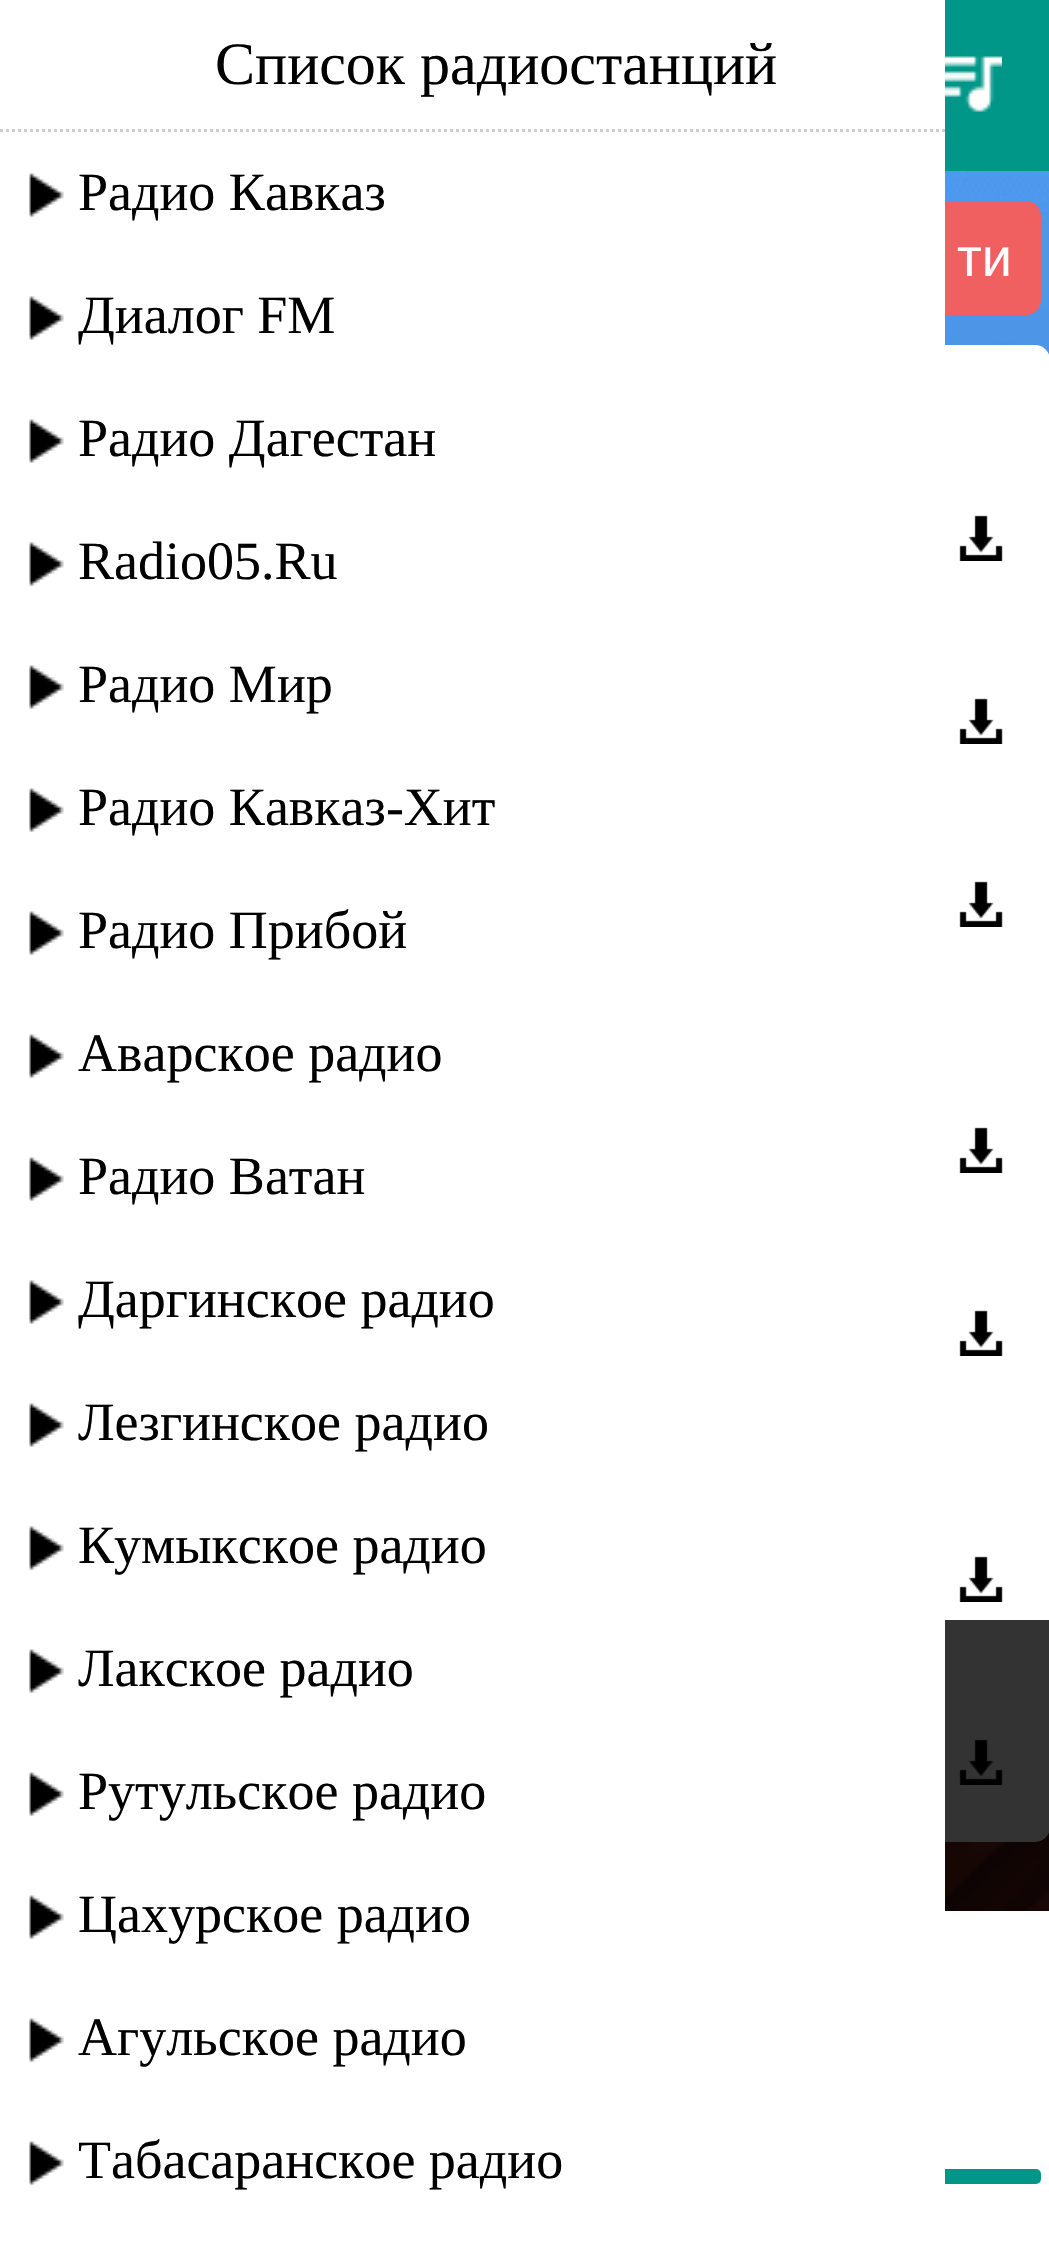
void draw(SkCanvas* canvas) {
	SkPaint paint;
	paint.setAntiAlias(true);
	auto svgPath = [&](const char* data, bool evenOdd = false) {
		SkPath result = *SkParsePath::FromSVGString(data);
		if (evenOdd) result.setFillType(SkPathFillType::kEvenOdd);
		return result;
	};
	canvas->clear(0xffffffff);
	canvas->drawImageRect(SkImages::DeferredFromEncodedData(SkData::MakeFromFileName("img1.png")), SkRect::MakeXYWH(945, 171, 104, 1740), SkSamplingOptions());
	paint.setColor(0xfff06060);
	canvas->drawPath(svgPath("M831 201H1026C1034.5 201 1041 207.5 1041 216V300C1041 308.5 1034.5 315 1026 315H831Z"), paint);
	paint.setColor(0xffffffff);
	canvas->drawRoundRect(SkRect::MakeXYWH(0, 345, 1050, 1497), 15, 15, paint);
	paint.setColor(0xff009688);
	canvas->drawRoundRect(SkRect::MakeXYWH(12, 2169, 1029, 15), 5, 5, paint);
	paint.setColor(0xffffffff);
	canvas->drawRect(SkRect::MakeXYWH(12, 201, 933, 1983), paint);
	paint.setStroke(true);
	paint.setStrokeWidth(3);
	paint.setColor(0xffcccccc);
	paint.setPathEffect(SkDashPathEffect::Make({{3, 3}}, 0));
	canvas->drawPath(svgPath("M0 130.5H945"), paint);
	paint.setPathEffect(nullptr);
	SkFont f1(fontMgr->matchFamilyStyle("Liberation Serif", SkFontStyle::Normal()), 60);
	f1.setSubpixel(true);
	paint.setStroke(false);
	paint.setColor(0xff000000);
	canvas->drawString("Список радиостанций", 215, 84, f1, paint);
	canvas->drawImageRect(SkImages::DeferredFromEncodedData(SkData::MakeFromFileName("img2.png")), SkRect::MakeXYWH(29, 173, 35, 44), SkSamplingOptions());
	SkFont f2(fontMgr->matchFamilyStyle("Liberation Serif", SkFontStyle::Normal()), 54);
	f2.setSubpixel(true);
	canvas->drawString("Радио Кавказ", 78, 210, f2, paint);
	canvas->drawImageRect(SkImages::DeferredFromEncodedData(SkData::MakeFromFileName("img2.png")), SkRect::MakeXYWH(29, 296, 35, 44), SkSamplingOptions());
	canvas->drawString("Диалог FM", 78, 333, f2, paint);
	canvas->drawImageRect(SkImages::DeferredFromEncodedData(SkData::MakeFromFileName("img2.png")), SkRect::MakeXYWH(29, 419, 35, 44), SkSamplingOptions());
	canvas->drawString("Радио Дагестан", 78, 456, f2, paint);
	canvas->drawImageRect(SkImages::DeferredFromEncodedData(SkData::MakeFromFileName("img2.png")), SkRect::MakeXYWH(29, 542, 35, 44), SkSamplingOptions());
	canvas->drawString("Radio05.Ru", 78, 579, f2, paint);
	canvas->drawImageRect(SkImages::DeferredFromEncodedData(SkData::MakeFromFileName("img2.png")), SkRect::MakeXYWH(29, 665, 35, 44), SkSamplingOptions());
	canvas->drawString("Радио Мир", 78, 702, f2, paint);
	canvas->drawImageRect(SkImages::DeferredFromEncodedData(SkData::MakeFromFileName("img2.png")), SkRect::MakeXYWH(29, 788, 35, 44), SkSamplingOptions());
	canvas->drawString("Радио Кавказ-Хит", 78, 825, f2, paint);
	canvas->drawImageRect(SkImages::DeferredFromEncodedData(SkData::MakeFromFileName("img2.png")), SkRect::MakeXYWH(29, 911, 35, 44), SkSamplingOptions());
	canvas->drawString("Радио Прибой", 78, 948, f2, paint);
	canvas->drawImageRect(SkImages::DeferredFromEncodedData(SkData::MakeFromFileName("img2.png")), SkRect::MakeXYWH(29, 1034, 35, 44), SkSamplingOptions());
	canvas->drawString("Аварское радио", 78, 1071, f2, paint);
	canvas->drawImageRect(SkImages::DeferredFromEncodedData(SkData::MakeFromFileName("img2.png")), SkRect::MakeXYWH(29, 1157, 35, 44), SkSamplingOptions());
	canvas->drawString("Радио Ватан", 78, 1194, f2, paint);
	canvas->drawImageRect(SkImages::DeferredFromEncodedData(SkData::MakeFromFileName("img2.png")), SkRect::MakeXYWH(29, 1280, 35, 44), SkSamplingOptions());
	canvas->drawString("Даргинское радио", 78, 1317, f2, paint);
	canvas->drawImageRect(SkImages::DeferredFromEncodedData(SkData::MakeFromFileName("img2.png")), SkRect::MakeXYWH(29, 1403, 35, 44), SkSamplingOptions());
	canvas->drawString("Лезгинское радио", 78, 1440, f2, paint);
	canvas->drawImageRect(SkImages::DeferredFromEncodedData(SkData::MakeFromFileName("img2.png")), SkRect::MakeXYWH(29, 1526, 35, 44), SkSamplingOptions());
	canvas->drawString("Кумыкское радио", 78, 1563, f2, paint);
	canvas->drawImageRect(SkImages::DeferredFromEncodedData(SkData::MakeFromFileName("img2.png")), SkRect::MakeXYWH(29, 1649, 35, 44), SkSamplingOptions());
	canvas->drawString("Лакское радио", 78, 1686, f2, paint);
	canvas->drawImageRect(SkImages::DeferredFromEncodedData(SkData::MakeFromFileName("img2.png")), SkRect::MakeXYWH(29, 1772, 35, 44), SkSamplingOptions());
	canvas->drawString("Рутульское радио", 78, 1809, f2, paint);
	canvas->drawImageRect(SkImages::DeferredFromEncodedData(SkData::MakeFromFileName("img2.png")), SkRect::MakeXYWH(29, 1895, 35, 44), SkSamplingOptions());
	canvas->drawString("Цахурское радио", 78, 1932, f2, paint);
	canvas->drawImageRect(SkImages::DeferredFromEncodedData(SkData::MakeFromFileName("img2.png")), SkRect::MakeXYWH(29, 2018, 35, 44), SkSamplingOptions());
	canvas->drawString("Агульское радио", 78, 2055, f2, paint);
	canvas->drawImageRect(SkImages::DeferredFromEncodedData(SkData::MakeFromFileName("img2.png")), SkRect::MakeXYWH(29, 2141, 35, 44), SkSamplingOptions());
	canvas->drawString("Табасаранское радио", 78, 2178, f2, paint);
	paint.setColor(0xff009688);
	canvas->drawRect(SkRect::MakeXYWH(945, 0, 104, 171), paint);
	canvas->drawImageRect(SkImages::DeferredFromEncodedData(SkData::MakeFromFileName("img3.png")), SkRect::MakeXYWH(945, 56, 57, 56), SkSamplingOptions());
	SkFont f3(fontMgr->matchFamilyStyle("Liberation Sans", SkFontStyle::Normal()), 54);
	f3.setSubpixel(true);
	paint.setColor(0xffffffff);
	canvas->drawString("ти", 957, 276, f3, paint);
	canvas->drawImageRect(SkImages::DeferredFromEncodedData(SkData::MakeFromFileName("img4.png")), SkRect::MakeXYWH(959, 515, 44, 46), SkSamplingOptions());
	canvas->drawImageRect(SkImages::DeferredFromEncodedData(SkData::MakeFromFileName("img4.png")), SkRect::MakeXYWH(959, 698, 44, 46), SkSamplingOptions());
	canvas->drawImageRect(SkImages::DeferredFromEncodedData(SkData::MakeFromFileName("img4.png")), SkRect::MakeXYWH(959, 881, 44, 46), SkSamplingOptions());
	canvas->drawImageRect(SkImages::DeferredFromEncodedData(SkData::MakeFromFileName("img4.png")), SkRect::MakeXYWH(959, 1127, 44, 46), SkSamplingOptions());
	canvas->drawImageRect(SkImages::DeferredFromEncodedData(SkData::MakeFromFileName("img4.png")), SkRect::MakeXYWH(959, 1310, 44, 46), SkSamplingOptions());
	canvas->drawImageRect(SkImages::DeferredFromEncodedData(SkData::MakeFromFileName("img4.png")), SkRect::MakeXYWH(959, 1556, 44, 46), SkSamplingOptions());
	canvas->drawImageRect(SkImages::DeferredFromEncodedData(SkData::MakeFromFileName("img4.png")), SkRect::MakeXYWH(959, 1739, 44, 46), SkSamplingOptions());
	paint.setColor(0xcc000000);
	canvas->drawRect(SkRect::MakeXYWH(945, 1620, 104, 291), paint);
}
